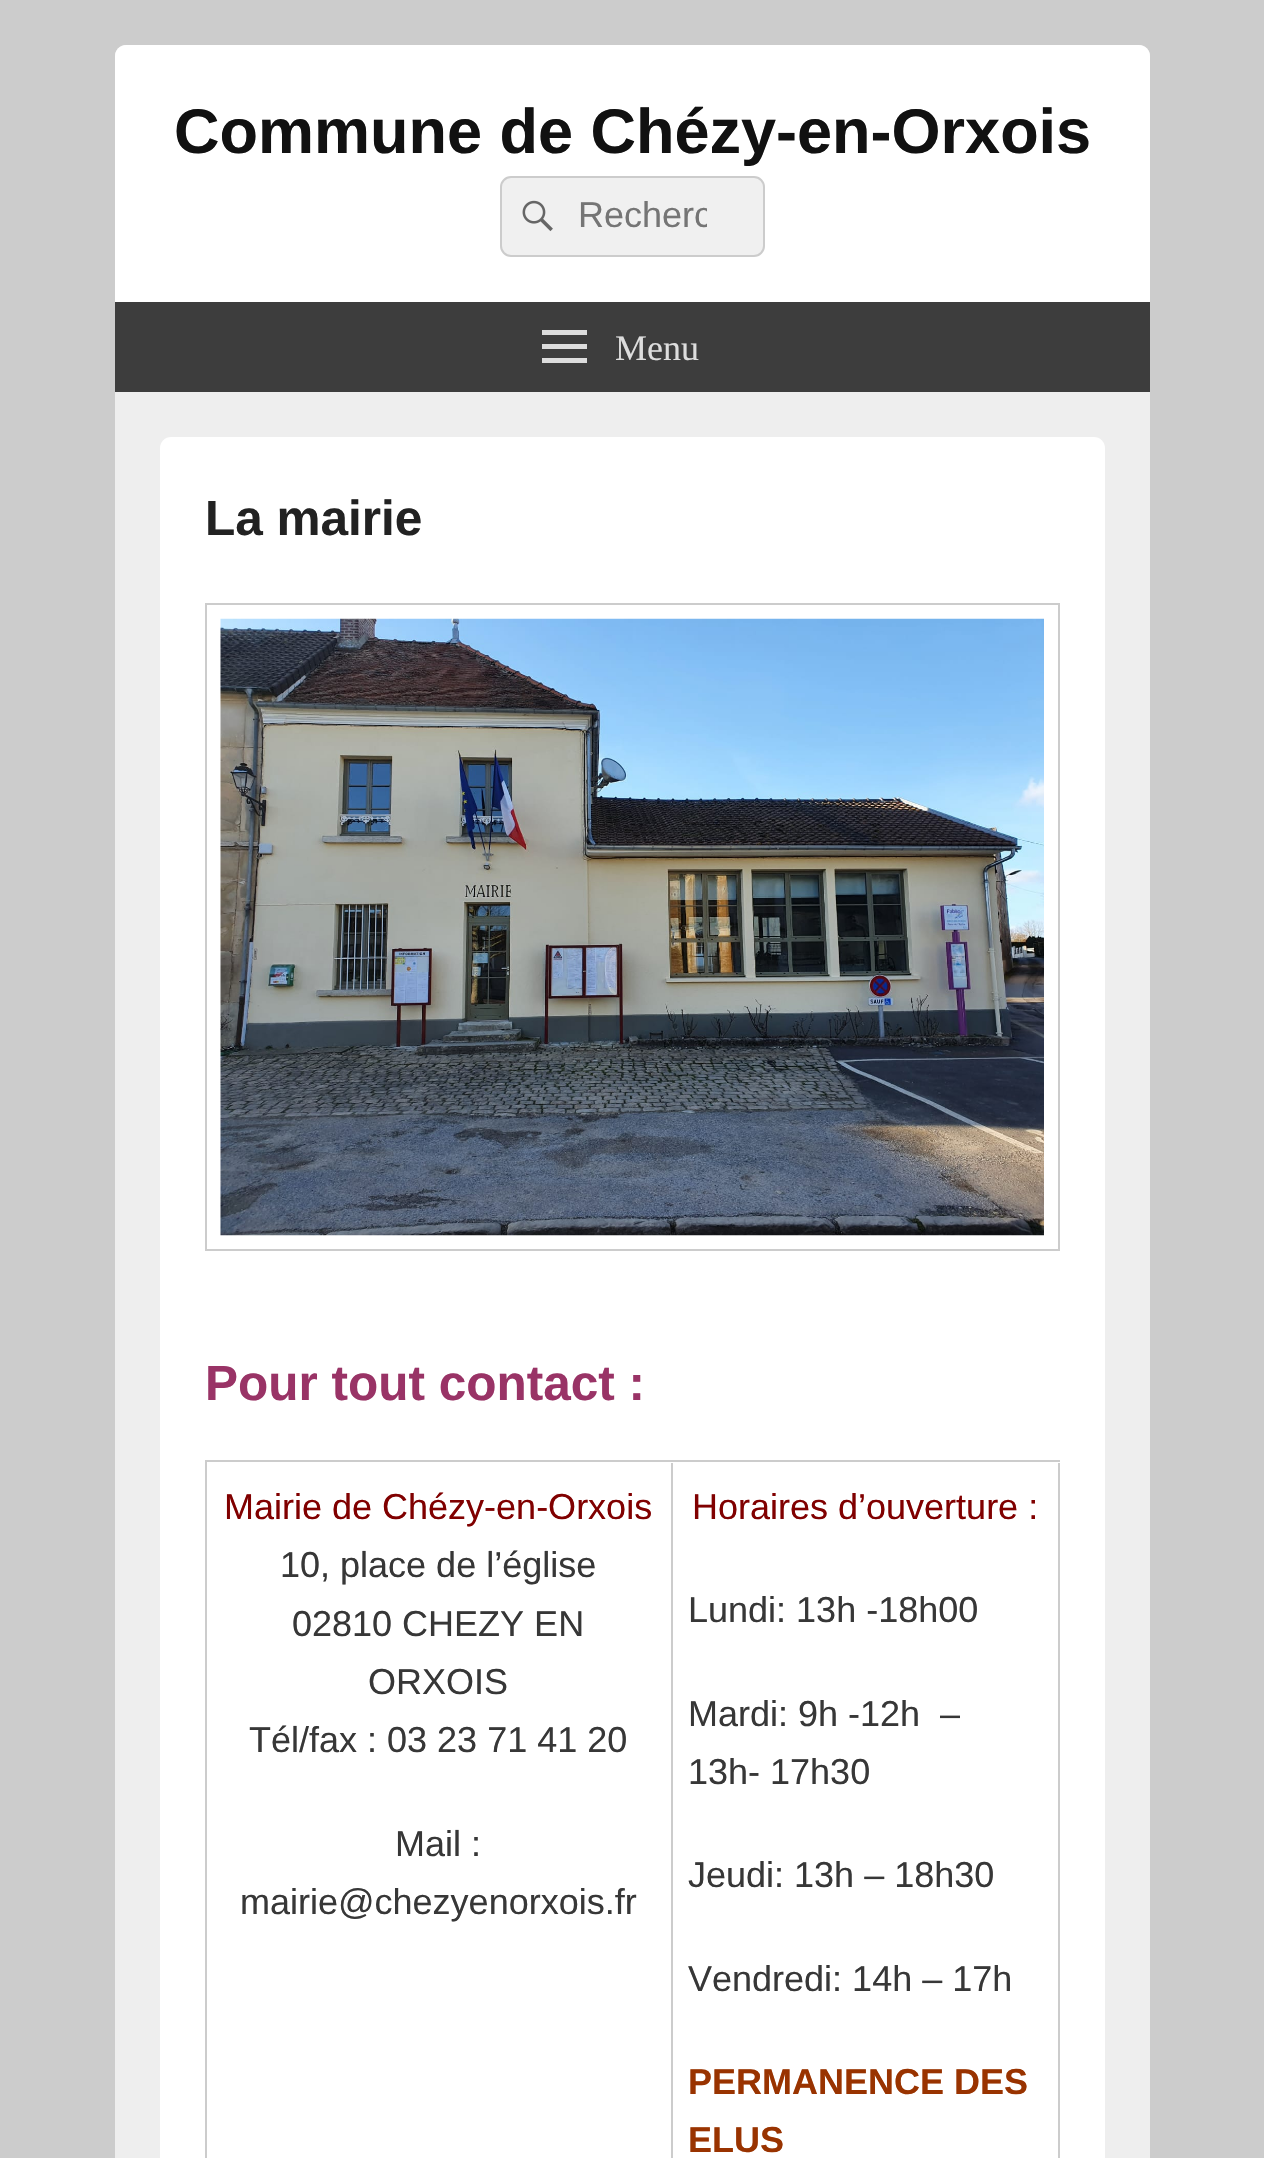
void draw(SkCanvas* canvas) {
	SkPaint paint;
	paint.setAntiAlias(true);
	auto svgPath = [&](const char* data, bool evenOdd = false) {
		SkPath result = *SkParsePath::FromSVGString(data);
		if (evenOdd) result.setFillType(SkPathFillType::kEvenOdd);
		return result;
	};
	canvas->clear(0xffcccccc);
	paint.setColor(0xffeeeeee);
	canvas->drawRoundRect(SkRect::MakeXYWH(115, 45, 1035, 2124), 11, 11, paint);
	paint.setColor(0xffffffff);
	canvas->drawPath(svgPath("M126 45H1139C1145 45 1150 50 1150 56V392H115V56C115 50 120 45 126 45Z"), paint);
	SkFont f1(fontMgr->matchFamilyStyle("Liberation Sans", SkFontStyle::Bold()), 63);
	f1.setSubpixel(true);
	paint.setColor(0xff111111);
	canvas->drawString("Commune de Chézy-en-Orxois", 174, 153, f1, paint);
	paint.setColor(0xfff0f0f0);
	canvas->drawRoundRect(SkRect::MakeXYWH(501, 177, 263, 79), 10, 10, paint);
	paint.setStroke(true);
	paint.setStrokeWidth(2);
	paint.setColor(0xffcccccc);
	canvas->drawRoundRect(SkRect::MakeXYWH(501, 177, 263, 79), 10, 10, paint);
	canvas->drawImageRect(SkImages::DeferredFromEncodedData(SkData::MakeFromFileName("img1.png")), SkRect::MakeXYWH(522, 200, 31, 32), SkSamplingOptions());
	canvas->save();
	canvas->clipRect(SkRect::MakeXYWH(578, 196, 129, 40));
	SkFont f2(fontMgr->matchFamilyStyle("Liberation Sans", SkFontStyle::Normal()), 36);
	f2.setSubpixel(true);
	paint.setStroke(false);
	paint.setColor(0xff757575);
	canvas->drawString("Recherc", 578, 227, f2, paint);
	canvas->restore();
	paint.setColor(0xff3d3d3d);
	canvas->drawRect(SkRect::MakeXYWH(115, 302, 1035, 90), paint);
	paint.setColor(0xffdddddd);
	canvas->drawPath(svgPath("M542 363V358H587V363ZM542 330H587V335H542ZM542 349V344H587V349Z"), paint);
	SkFont f3(fontMgr->matchFamilyStyle("Liberation Serif", SkFontStyle::Normal()), 36);
	f3.setSubpixel(true);
	canvas->drawString("Menu", 615, 360, f3, paint);
	paint.setColor(0xffffffff);
	canvas->drawRoundRect(SkRect::MakeXYWH(160, 437, 945, 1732), 11, 11, paint);
	SkFont f4(fontMgr->matchFamilyStyle("Liberation Sans", SkFontStyle::Bold()), 49.5);
	f4.setSubpixel(true);
	paint.setColor(0xff222222);
	canvas->drawString("La mairie", 205, 535, f4, paint);
	paint.setStroke(true);
	paint.setColor(0xffcccccc);
	canvas->drawRect(SkRect::MakeXYWH(206, 604, 853, 646), paint);
	canvas->drawImageRect(SkImages::DeferredFromEncodedData(SkData::MakeFromFileName("img2.png")), SkRect::MakeXYWH(220, 618, 824, 618), SkSamplingOptions());
	paint.setStroke(false);
	paint.setColor(0xff993366);
	canvas->drawString("Pour tout contact :", 205, 1400, f4, paint);
	paint.setColor(0xffcccccc);
	canvas->drawRect(SkRect::MakeXYWH(205, 1460, 855, 2), paint);
	canvas->drawRect(SkRect::MakeXYWH(205, 1460, 2, 698), paint);
	canvas->drawRect(SkRect::MakeXYWH(671, 1463, 2, 695), paint);
	paint.setColor(0xff800000);
	canvas->drawString("Mairie de Chézy-en-Orxois", 224, 1519, f2, paint);
	paint.setColor(0xff373737);
	canvas->drawString("10, place de l’église", 280, 1577, f2, paint);
	canvas->drawString("02810 CHEZY EN", 292, 1636, f2, paint);
	canvas->drawString("ORXOIS", 368, 1694, f2, paint);
	canvas->drawString("Tél/fax : 03 23 71 41 20", 249, 1752, f2, paint);
	canvas->drawString("Mail :", 395, 1856, f2, paint);
	canvas->drawString("mairie@chezyenorxois.fr", 240, 1914, f2, paint);
	paint.setColor(0xffcccccc);
	canvas->drawRect(SkRect::MakeXYWH(1058, 1463, 2, 695), paint);
	paint.setColor(0xff800000);
	canvas->drawString("Horaires d’ouverture :", 692, 1519, f2, paint);
	paint.setColor(0xff373737);
	canvas->drawString("Lundi: 13h -18h00", 688, 1622, f2, paint);
	canvas->drawString("Mardi: 9h -12h  –", 688, 1726, f2, paint);
	canvas->drawString("13h- 17h30", 688, 1784, f2, paint);
	canvas->drawString("Jeudi: 13h – 18h30", 688, 1887, f2, paint);
	canvas->drawString("Vendredi: 14h – 17h", 688, 1991, f2, paint);
	SkFont f5(fontMgr->matchFamilyStyle("Liberation Sans", SkFontStyle::Bold()), 36);
	f5.setSubpixel(true);
	paint.setColor(0xff993300);
	canvas->drawString("PERMANENCE DES", 688, 2094, f5, paint);
	canvas->drawString("ELUS", 688, 2152, f5, paint);
}
